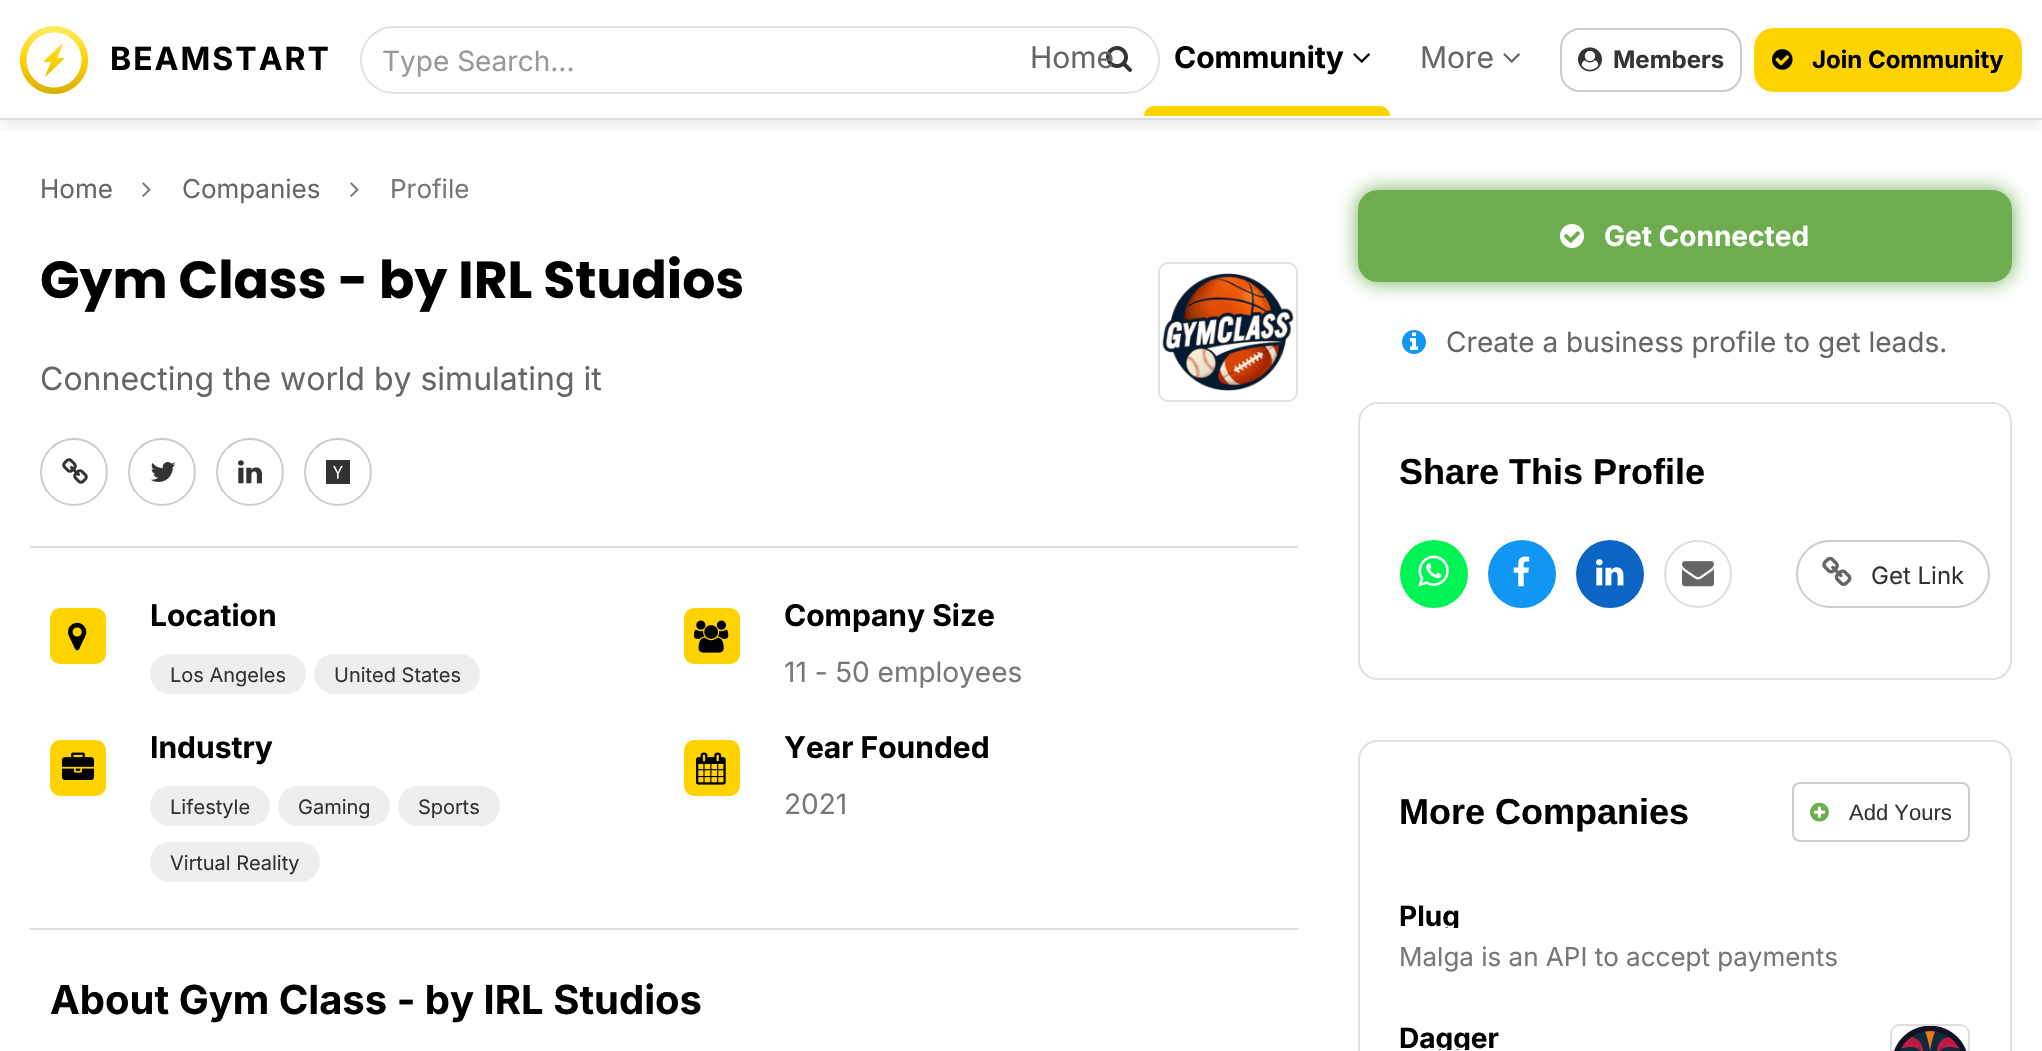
void draw(SkCanvas* canvas) {
	SkPaint paint;
	paint.setAntiAlias(true);
	auto spacedText = [&](const char* s, float x, float y, const SkFont& font, const SkPaint& ink, float letter, float word) {
		std::vector<SkGlyphID> glyphs(font.countText(s, strlen(s), SkTextEncoding::kUTF8));
		std::vector<float> xs(glyphs.size());
		font.textToGlyphs(s, strlen(s), SkTextEncoding::kUTF8, glyphs);
		font.getXPos(glyphs, xs, x);
		float extra = 0;
		for (size_t i = 0; i < glyphs.size(); i++) {
			xs[i] += extra;
			extra += letter + word * (glyphs[i] == font.unicharToGlyph(' '));
		}
		canvas->drawTextBlob(SkTextBlob::MakeFromPosHGlyphs(glyphs, xs, y, font), 0, 0, ink);
	};
	auto svgPath = [&](const char* data, bool evenOdd = false) {
		SkPath result = *SkParsePath::FromSVGString(data);
		if (evenOdd) result.setFillType(SkPathFillType::kEvenOdd);
		return result;
	};
	canvas->clear(0xffffffff);
	canvas->save();
	canvas->clipRect(SkRect::MakeXYWH(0, 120, 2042, 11));
	paint.setColor(0x0d000000);
	paint.setMaskFilter(SkMaskFilter::MakeBlur(kNormal_SkBlurStyle, 5));
	canvas->drawRect(SkRect::MakeXYWH(0, 10, 2042, 120), paint);
	paint.setMaskFilter(nullptr);
	canvas->restore();
	paint.setColor(0xffdddddd);
	canvas->drawRect(SkRect::MakeXYWH(0, 118, 2042, 2), paint);
	canvas->drawImageRect(SkImages::DeferredFromEncodedData(SkData::MakeFromFileName("img1.png")), SkRect::MakeXYWH(20, 26, 68, 68), SkSamplingOptions());
	SkFont f1(fontMgr->matchFamilyStyle("Inter", SkFontStyle::Bold()), 32);
	f1.setSubpixel(true);
	paint.setColor(0xff000000);
	spacedText("BEAMSTART", 110, 70, f1, paint, 2, 0);
	paint.setStroke(true);
	paint.setStrokeWidth(2);
	paint.setColor(0xffe1e1e1);
	canvas->drawRoundRect(SkRect::MakeXYWH(361, 27, 798, 66), 33, 33, paint);
	SkFont f2(fontMgr->matchFamilyStyle("Inter", SkFontStyle::Normal()), 28);
	f2.setSubpixel(true);
	paint.setStroke(false);
	paint.setColor(0xff999999);
	canvas->drawString("Type Search...", 382, 71, f2, paint);
	canvas->drawImageRect(SkImages::DeferredFromEncodedData(SkData::MakeFromFileName("img2.png")), SkRect::MakeXYWH(1106, 46, 26, 26), SkSamplingOptions());
	SkFont f3(fontMgr->matchFamilyStyle("Inter", SkFontStyle::Normal()), 30);
	f3.setSubpixel(true);
	paint.setColor(0xff666666);
	canvas->drawString("Home", 1030, 68, f3, paint);
	SkFont f4(fontMgr->matchFamilyStyle("Inter", SkFontStyle::Bold()), 30);
	f4.setSubpixel(true);
	paint.setColor(0xff000000);
	canvas->drawString("Community", 1174, 68, f4, paint);
	canvas->drawImageRect(SkImages::DeferredFromEncodedData(SkData::MakeFromFileName("img3.png")), SkRect::MakeXYWH(1353, 53, 17, 10), SkSamplingOptions());
	paint.setColor(0xffffd300);
	canvas->drawPath(svgPath("M1154 106H1380C1385.5 106 1390 110.5 1390 116H1144C1144 110.5 1148.5 106 1154 106Z"), paint);
	paint.setColor(0xff666666);
	canvas->drawString("More", 1420, 68, f3, paint);
	canvas->drawImageRect(SkImages::DeferredFromEncodedData(SkData::MakeFromFileName("img4.png")), SkRect::MakeXYWH(1503, 53, 17, 10), SkSamplingOptions());
	paint.setStroke(true);
	paint.setColor(0xffcccccc);
	canvas->drawRoundRect(SkRect::MakeXYWH(1561, 29, 180, 62), 19, 19, paint);
	canvas->drawImageRect(SkImages::DeferredFromEncodedData(SkData::MakeFromFileName("img5.png")), SkRect::MakeXYWH(1578, 47, 24, 25), SkSamplingOptions());
	SkFont f5(fontMgr->matchFamilyStyle("Inter", SkFontStyle::Bold()), 24);
	f5.setSubpixel(true);
	paint.setStroke(false);
	paint.setColor(0xff333333);
	canvas->drawString("Members", 1613, 68, f5, paint);
	paint.setColor(0xffffd300);
	canvas->drawRoundRect(SkRect::MakeXYWH(1754, 28, 268, 64), 20, 20, paint);
	canvas->drawImageRect(SkImages::DeferredFromEncodedData(SkData::MakeFromFileName("img6.png")), SkRect::MakeXYWH(1772, 49, 21, 21), SkSamplingOptions());
	paint.setColor(0xff000000);
	canvas->drawString("Join Community", 1812, 68, f5, paint);
	SkFont f6(fontMgr->matchFamilyStyle("Inter", SkFontStyle::Normal()), 26);
	f6.setSubpixel(true);
	paint.setColor(0xff666666);
	canvas->drawString("Home", 40, 198, f6, paint);
	canvas->drawImageRect(SkImages::DeferredFromEncodedData(SkData::MakeFromFileName("img7.png")), SkRect::MakeXYWH(142, 182, 9, 15), SkSamplingOptions());
	canvas->drawString("Companies", 182, 198, f6, paint);
	canvas->drawImageRect(SkImages::DeferredFromEncodedData(SkData::MakeFromFileName("img7.png")), SkRect::MakeXYWH(350, 182, 9, 15), SkSamplingOptions());
	paint.setColor(0xff777777);
	canvas->drawString("Profile", 390, 198, f6, paint);
	SkFont f7(fontMgr->matchFamilyStyle("Poppins", SkFontStyle::Bold()), 52);
	f7.setSubpixel(true);
	paint.setColor(0xff000000);
	canvas->drawString("Gym Class - by IRL Studios", 40, 298, f7, paint);
	paint.setStroke(true);
	paint.setColor(0xffe3e3e3);
	canvas->drawRoundRect(SkRect::MakeXYWH(1159, 263, 138, 138), 9, 9, paint);
	canvas->drawImageRect(SkImages::DeferredFromEncodedData(SkData::MakeFromFileName("img8.png")), SkRect::MakeXYWH(1162, 273, 132, 118), SkSamplingOptions());
	SkFont f8(fontMgr->matchFamilyStyle("Inter", SkFontStyle::Normal()), 32);
	f8.setSubpixel(true);
	paint.setStroke(false);
	paint.setColor(0xff666666);
	canvas->drawString("Connecting the world by simulating it", 40, 390, f8, paint);
	paint.setStroke(true);
	paint.setColor(0xffcccccc);
	canvas->drawCircle(74, 472, 33, paint);
	canvas->drawImageRect(SkImages::DeferredFromEncodedData(SkData::MakeFromFileName("img9.png")), SkRect::MakeXYWH(62, 458, 26, 26), SkSamplingOptions());
	canvas->drawCircle(162, 472, 33, paint);
	canvas->drawImageRect(SkImages::DeferredFromEncodedData(SkData::MakeFromFileName("img10.png")), SkRect::MakeXYWH(150, 462, 26, 20), SkSamplingOptions());
	canvas->drawCircle(250, 472, 33, paint);
	canvas->drawImageRect(SkImages::DeferredFromEncodedData(SkData::MakeFromFileName("img11.png")), SkRect::MakeXYWH(238, 460, 24, 24), SkSamplingOptions());
	canvas->drawCircle(338, 472, 33, paint);
	canvas->drawImageRect(SkImages::DeferredFromEncodedData(SkData::MakeFromFileName("img12.png")), SkRect::MakeXYWH(326, 460, 24, 24), SkSamplingOptions());
	paint.setStroke(false);
	paint.setColor(0xffdddddd);
	canvas->drawRect(SkRect::MakeXYWH(30, 546, 1268, 2), paint);
	paint.setColor(0xffffd300);
	canvas->drawRoundRect(SkRect::MakeXYWH(50, 608, 56, 56), 10, 10, paint);
	canvas->drawImageRect(SkImages::DeferredFromEncodedData(SkData::MakeFromFileName("img13.png")), SkRect::MakeXYWH(68, 622, 19, 29), SkSamplingOptions());
	paint.setColor(0xff000000);
	canvas->drawString("Location", 150, 626, f4, paint);
	paint.setColor(0xffeeeeee);
	canvas->drawRoundRect(SkRect::MakeXYWH(150, 654, 156, 40), 20, 20, paint);
	SkFont f9(fontMgr->matchFamilyStyle("Inter", SkFontStyle::Normal()), 20);
	f9.setSubpixel(true);
	paint.setColor(0xff333333);
	canvas->drawString("Los Angeles", 170, 682, f9, paint);
	paint.setColor(0xffeeeeee);
	canvas->drawRoundRect(SkRect::MakeXYWH(314, 654, 166, 40), 20, 20, paint);
	paint.setColor(0xff333333);
	canvas->drawString("United States", 334, 682, f9, paint);
	paint.setColor(0xffffd300);
	canvas->drawRoundRect(SkRect::MakeXYWH(50, 740, 56, 56), 10, 10, paint);
	canvas->drawImageRect(SkImages::DeferredFromEncodedData(SkData::MakeFromFileName("img14.png")), SkRect::MakeXYWH(62, 752, 32, 28), SkSamplingOptions());
	paint.setColor(0xff000000);
	canvas->drawString("Industry", 150, 758, f4, paint);
	paint.setColor(0xffeeeeee);
	canvas->drawRoundRect(SkRect::MakeXYWH(150, 786, 120, 40), 20, 20, paint);
	paint.setColor(0xff333333);
	canvas->drawString("Lifestyle", 170, 814, f9, paint);
	paint.setColor(0xffeeeeee);
	canvas->drawRoundRect(SkRect::MakeXYWH(278, 786, 112, 40), 20, 20, paint);
	paint.setColor(0xff333333);
	canvas->drawString("Gaming", 298, 814, f9, paint);
	paint.setColor(0xffeeeeee);
	canvas->drawRoundRect(SkRect::MakeXYWH(398, 786, 102, 40), 20, 20, paint);
	paint.setColor(0xff333333);
	canvas->drawString("Sports", 418, 814, f9, paint);
	paint.setColor(0xffeeeeee);
	canvas->drawRoundRect(SkRect::MakeXYWH(150, 842, 170, 40), 20, 20, paint);
	paint.setColor(0xff333333);
	canvas->drawString("Virtual Reality", 170, 870, f9, paint);
	paint.setColor(0xffffd300);
	canvas->drawRoundRect(SkRect::MakeXYWH(684, 608, 56, 56), 10, 10, paint);
	canvas->drawImageRect(SkImages::DeferredFromEncodedData(SkData::MakeFromFileName("img15.png")), SkRect::MakeXYWH(694, 620, 35, 33), SkSamplingOptions());
	paint.setColor(0xff000000);
	canvas->drawString("Company Size", 784, 626, f4, paint);
	paint.setColor(0xff777777);
	canvas->drawString("11 - 50 employees", 784, 682, f2, paint);
	paint.setColor(0xffffd300);
	canvas->drawRoundRect(SkRect::MakeXYWH(684, 740, 56, 56), 10, 10, paint);
	canvas->drawImageRect(SkImages::DeferredFromEncodedData(SkData::MakeFromFileName("img16.png")), SkRect::MakeXYWH(696, 752, 30, 33), SkSamplingOptions());
	paint.setColor(0xff000000);
	canvas->drawString("Year Founded", 784, 758, f4, paint);
	paint.setColor(0xff777777);
	canvas->drawString("2021", 784, 814, f2, paint);
	paint.setColor(0xffdddddd);
	canvas->drawRect(SkRect::MakeXYWH(30, 928, 1268, 2), paint);
	SkFont f10(fontMgr->matchFamilyStyle("Inter", SkFontStyle::Bold()), 40);
	f10.setSubpixel(true);
	paint.setColor(0xff000000);
	canvas->drawString("About Gym Class - by IRL Studios", 50, 1014, f10, paint);
	paint.setColor(0xff6dad4f);
	paint.setMaskFilter(SkMaskFilter::MakeBlur(kNormal_SkBlurStyle, 10));
	canvas->drawRoundRect(SkRect::MakeXYWH(1358, 190, 654, 92), 20, 20, paint);
	paint.setMaskFilter(nullptr);
	canvas->drawRoundRect(SkRect::MakeXYWH(1358, 190, 654, 92), 20, 20, paint);
	canvas->drawImageRect(SkImages::DeferredFromEncodedData(SkData::MakeFromFileName("img17.png")), SkRect::MakeXYWH(1560, 224, 24, 24), SkSamplingOptions());
	SkFont f11(fontMgr->matchFamilyStyle("Inter", SkFontStyle::Bold()), 28);
	f11.setSubpixel(true);
	paint.setColor(0xffffffff);
	canvas->drawString("Get Connected", 1604, 246, f11, paint);
	canvas->drawRoundRect(SkRect::MakeXYWH(1358, 302, 634, 80), 20, 20, paint);
	canvas->drawImageRect(SkImages::DeferredFromEncodedData(SkData::MakeFromFileName("img18.png")), SkRect::MakeXYWH(1402, 330, 24, 24), SkSamplingOptions());
	paint.setColor(0xff666666);
	canvas->drawString("Create a business profile to get leads.", 1446, 352, f2, paint);
	paint.setStroke(true);
	paint.setColor(0xffe1e1e1);
	canvas->drawRoundRect(SkRect::MakeXYWH(1359, 403, 652, 276), 19, 19, paint);
	SkFont f12(fontMgr->matchFamilyStyle("Liberation Sans", SkFontStyle::Bold()), 36);
	f12.setSubpixel(true);
	paint.setStroke(false);
	paint.setColor(0xff000000);
	canvas->drawString("Share This Profile", 1399, 484, f12, paint);
	paint.setColor(0xff00f355);
	canvas->drawCircle(1434, 574, 34, paint);
	canvas->drawImageRect(SkImages::DeferredFromEncodedData(SkData::MakeFromFileName("img19.png")), SkRect::MakeXYWH(1418, 555, 31, 32), SkSamplingOptions());
	paint.setColor(0xff1196f4);
	canvas->drawCircle(1522, 574, 34, paint);
	canvas->drawImageRect(SkImages::DeferredFromEncodedData(SkData::MakeFromFileName("img20.png")), SkRect::MakeXYWH(1513, 556, 17, 31), SkSamplingOptions());
	paint.setColor(0xff0c64c5);
	canvas->drawCircle(1610, 574, 34, paint);
	canvas->drawImageRect(SkImages::DeferredFromEncodedData(SkData::MakeFromFileName("img21.png")), SkRect::MakeXYWH(1596, 559, 28, 27), SkSamplingOptions());
	paint.setStroke(true);
	paint.setColor(0xffdddddd);
	canvas->drawCircle(1698, 574, 33, paint);
	canvas->drawImageRect(SkImages::DeferredFromEncodedData(SkData::MakeFromFileName("img22.png")), SkRect::MakeXYWH(1682, 561, 32, 26), SkSamplingOptions());
	paint.setColor(0xffcccccc);
	canvas->drawRoundRect(SkRect::MakeXYWH(1797, 541, 192, 66), 33, 33, paint);
	canvas->drawImageRect(SkImages::DeferredFromEncodedData(SkData::MakeFromFileName("img23.png")), SkRect::MakeXYWH(1822, 556, 30, 30), SkSamplingOptions());
	SkFont f13(fontMgr->matchFamilyStyle("Inter", SkFontStyle::Normal()), 24);
	f13.setSubpixel(true);
	paint.setStroke(false);
	paint.setColor(0xff333333);
	canvas->drawString("Get Link", 1871, 584, f13, paint);
	paint.setStroke(true);
	paint.setColor(0xffe1e1e1);
	canvas->drawRoundRect(SkRect::MakeXYWH(1359, 741, 652, 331), 19, 19, paint);
	paint.setStroke(false);
	paint.setColor(0xff000000);
	canvas->drawString("More Companies", 1399, 824, f12, paint);
	paint.setStroke(true);
	paint.setColor(0xffcccccc);
	canvas->drawRoundRect(SkRect::MakeXYWH(1793, 783, 176, 58), 7, 7, paint);
	canvas->drawImageRect(SkImages::DeferredFromEncodedData(SkData::MakeFromFileName("img24.png")), SkRect::MakeXYWH(1810, 802, 19, 20), SkSamplingOptions());
	SkFont f14(fontMgr->matchFamilyStyle("Liberation Sans", SkFontStyle::Normal()), 22);
	f14.setSubpixel(true);
	paint.setStroke(false);
	paint.setColor(0xff333333);
	canvas->drawString("Add Yours", 1849, 820, f14, paint);
	canvas->save();
	canvas->clipRect(SkRect::MakeXYWH(1400, 902, 460, 26));
	paint.setColor(0xff000000);
	canvas->drawString("Plug", 1399, 926, f11, paint);
	canvas->restore();
	paint.setColor(0xff777777);
	canvas->drawString("Malga is an API to accept payments", 1399, 966, f6, paint);
	canvas->save();
	canvas->clipRect(SkRect::MakeXYWH(1400, 1024, 460, 26));
	paint.setColor(0xff000000);
	canvas->drawString("Dagger", 1399, 1048, f11, paint);
	canvas->restore();
	paint.setStroke(true);
	paint.setColor(0xffdddddd);
	canvas->drawRoundRect(SkRect::MakeXYWH(1891, 1025, 78, 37), 9, 9, paint);
	canvas->drawImageRect(SkImages::DeferredFromEncodedData(SkData::MakeFromFileName("img25.png")), SkRect::MakeXYWH(1892, 1026, 76, 25), SkSamplingOptions());
}
